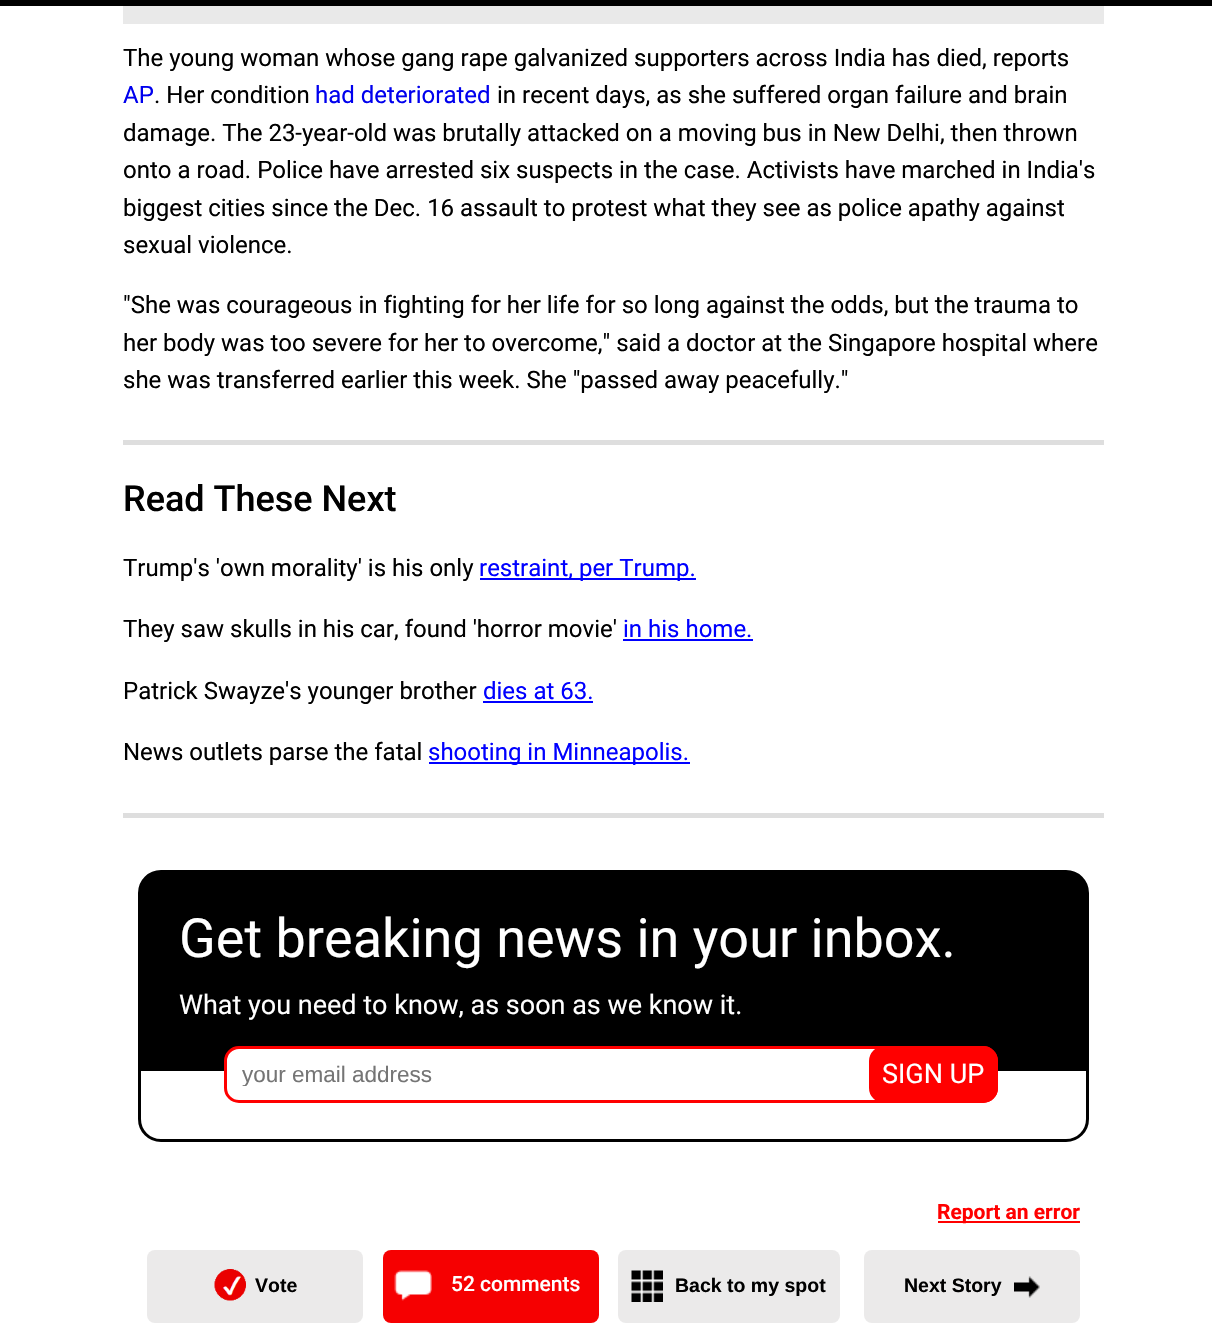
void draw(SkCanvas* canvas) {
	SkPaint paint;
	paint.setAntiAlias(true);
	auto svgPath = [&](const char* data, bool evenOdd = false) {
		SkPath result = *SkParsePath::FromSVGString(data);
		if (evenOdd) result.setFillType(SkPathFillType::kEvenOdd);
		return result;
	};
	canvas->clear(0xffffffff);
	paint.setColor(0xff000000);
	canvas->drawRect(SkRect::MakeXYWH(0, 0, 1212, 6), paint);
	paint.setColor(0xffe9e9e9);
	canvas->drawRect(SkRect::MakeXYWH(123, 6, 981, 18), paint);
	SkFont f1(fontMgr->matchFamilyStyle("Roboto", SkFontStyle::Normal()), 24);
	f1.setSubpixel(true);
	paint.setColor(0xff000000);
	canvas->drawString("The young woman whose gang rape galvanized supporters across India has died, reports", 123, 66, f1, paint);
	paint.setColor(0xff0000ee);
	canvas->drawString("AP", 123, 103, f1, paint);
	paint.setColor(0xff000000);
	canvas->drawString(". Her condition", 154, 103, f1, paint);
	paint.setColor(0xff0000ee);
	canvas->drawString("had deteriorated", 315, 103, f1, paint);
	paint.setColor(0xff000000);
	canvas->drawString("in recent days, as she suffered organ failure and brain", 497, 103, f1, paint);
	canvas->drawString("damage. The 23-year-old was brutally attacked on a moving bus in New Delhi, then thrown", 123, 141, f1, paint);
	canvas->drawString("onto a road. Police have arrested six suspects in the case. Activists have marched in India's", 123, 178, f1, paint);
	canvas->drawString("biggest cities since the Dec. 16 assault to protest what they see as police apathy against", 123, 216, f1, paint);
	canvas->drawString("sexual violence.", 123, 253, f1, paint);
	canvas->drawString("\"She was courageous in fighting for her life for so long against the odds, but the trauma to", 123, 313, f1, paint);
	canvas->drawString("her body was too severe for her to overcome,\" said a doctor at the Singapore hospital where", 123, 351, f1, paint);
	canvas->drawString("she was transferred earlier this week. She \"passed away peacefully.\"", 123, 388, f1, paint);
	paint.setColor(0xffdedede);
	canvas->drawRect(SkRect::MakeXYWH(123, 440, 981, 5), paint);
	SkFont f2(fontMgr->matchFamilyStyle("Roboto", SkFontStyle(500, SkFontStyle::kNormal_Width, SkFontStyle::kUpright_Slant)), 36);
	f2.setSubpixel(true);
	paint.setColor(0xff000000);
	canvas->drawString("Read These Next", 123, 511, f2, paint);
	canvas->drawString("Trump's 'own morality' is his only", 123, 576, f1, paint);
	paint.setColor(0xff0000ff);
	canvas->drawRect(SkRect::MakeXYWH(480, 578, 216, 2), paint);
	canvas->drawString("restraint, per Trump.", 479, 576, f1, paint);
	paint.setColor(0xff000000);
	canvas->drawString("They saw skulls in his car, found 'horror movie'", 123, 637, f1, paint);
	paint.setColor(0xff0000ff);
	canvas->drawString("in his home.", 623, 637, f1, paint);
	canvas->drawRect(SkRect::MakeXYWH(623, 639, 130, 2), paint);
	paint.setColor(0xff000000);
	canvas->drawString("Patrick Swayze's younger brother", 123, 699, f1, paint);
	paint.setColor(0xff0000ff);
	canvas->drawString("dies at 63.", 483, 699, f1, paint);
	canvas->drawRect(SkRect::MakeXYWH(483, 701, 110, 2), paint);
	paint.setColor(0xff000000);
	canvas->drawString("News outlets parse the fatal", 123, 760, f1, paint);
	paint.setColor(0xff0000ff);
	canvas->drawRect(SkRect::MakeXYWH(429, 762, 261, 2), paint);
	canvas->drawString("shooting in Minneapolis.", 428, 760, f1, paint);
	paint.setColor(0xffdedede);
	canvas->drawRect(SkRect::MakeXYWH(123, 813, 981, 5), paint);
	paint.setColor(0xff000000);
	canvas->drawPath(svgPath("M161 871.5H1066C1078 871.5 1087.5 881 1087.5 893V1066.5H139.5V893C139.5 881 149 871.5 161 871.5Z"), paint);
	paint.setStroke(true);
	paint.setStrokeWidth(3);
	canvas->drawPath(svgPath("M161 871.5H1066C1078 871.5 1087.5 881 1087.5 893V1066.5H139.5V893C139.5 881 149 871.5 161 871.5Z"), paint);
	SkFont f3(fontMgr->matchFamilyStyle("Roboto", SkFontStyle::Normal()), 54);
	f3.setSubpixel(true);
	paint.setStroke(false);
	paint.setColor(0xffffffff);
	canvas->drawString("Get breaking news in your inbox.", 179, 957, f3, paint);
	SkFont f4(fontMgr->matchFamilyStyle("Roboto", SkFontStyle::Normal()), 27);
	f4.setSubpixel(true);
	canvas->drawString("What you need to know, as soon as we know it.", 179, 1014, f4, paint);
	paint.setStroke(true);
	paint.setColor(0xff000000);
	canvas->drawPath(svgPath("M139.5 1069.5H1087.5V1119C1087.5 1131 1078 1140.5 1066 1140.5H161C149 1140.5 139.5 1131 139.5 1119Z"), paint);
	paint.setStroke(false);
	paint.setColor(0xffffffff);
	canvas->drawRoundRect(SkRect::MakeXYWH(225.5, 1047.5, 771, 54), 13.5, 13.5, paint);
	paint.setStroke(true);
	paint.setColor(0xffff0000);
	canvas->drawRoundRect(SkRect::MakeXYWH(225.5, 1047.5, 771, 54), 13.5, 13.5, paint);
	canvas->save();
	canvas->clipRect(SkRect::MakeXYWH(242, 1061, 750, 25));
	SkFont f5(fontMgr->matchFamilyStyle("Liberation Sans", SkFontStyle::Normal()), 22.5);
	f5.setSubpixel(true);
	paint.setStroke(false);
	paint.setColor(0xff757575);
	canvas->drawString("your email address", 242, 1082, f5, paint);
	canvas->restore();
	paint.setColor(0xffff0000);
	canvas->drawRoundRect(SkRect::MakeXYWH(870.5, 1047.5, 126, 54), 13.5, 13.5, paint);
	paint.setStroke(true);
	canvas->drawRoundRect(SkRect::MakeXYWH(870.5, 1047.5, 126, 54), 13.5, 13.5, paint);
	paint.setStroke(false);
	paint.setColor(0xffffffff);
	canvas->drawString("SIGN UP", 882, 1083, f4, paint);
	paint.setColor(0xffff0000);
	canvas->drawRect(SkRect::MakeXYWH(938, 1221, 142, 2), paint);
	SkFont f6(fontMgr->matchFamilyStyle("Roboto", SkFontStyle::Bold()), 21);
	f6.setSubpixel(true);
	canvas->drawString("Report an error", 937, 1219, f6, paint);
	paint.setColor(0xffebeaea);
	canvas->drawRoundRect(SkRect::MakeXYWH(147, 1250, 216, 73), 8, 8, paint);
	canvas->drawImageRect(SkImages::DeferredFromEncodedData(SkData::MakeFromFileName("img1.png")), SkRect::MakeXYWH(214, 1269, 32, 32), SkSamplingOptions());
	SkFont f7(fontMgr->matchFamilyStyle("Liberation Sans", SkFontStyle::Bold()), 19.5);
	f7.setSubpixel(true);
	paint.setColor(0xff000000);
	canvas->drawString("Vote", 255, 1292, f7, paint);
	paint.setColor(0xfff60001);
	canvas->drawRoundRect(SkRect::MakeXYWH(383, 1250, 216, 73), 8, 8, paint);
	canvas->drawImageRect(SkImages::DeferredFromEncodedData(SkData::MakeFromFileName("img2.png")), SkRect::MakeXYWH(394, 1270, 38, 31), SkSamplingOptions());
	SkFont f8(fontMgr->matchFamilyStyle("Roboto", SkFontStyle(500, SkFontStyle::kNormal_Width, SkFontStyle::kUpright_Slant)), 21);
	f8.setSubpixel(true);
	paint.setColor(0xffffffff);
	canvas->drawString("52 comments", 451, 1291, f8, paint);
	paint.setColor(0xffebeaea);
	canvas->drawRoundRect(SkRect::MakeXYWH(618, 1250, 222, 73), 8, 8, paint);
	canvas->drawImageRect(SkImages::DeferredFromEncodedData(SkData::MakeFromFileName("img3.png")), SkRect::MakeXYWH(631, 1270, 32, 32), SkSamplingOptions());
	paint.setColor(0xff000000);
	canvas->drawString("Back to my spot", 675, 1292, f7, paint);
	paint.setColor(0xffebeaea);
	canvas->drawRoundRect(SkRect::MakeXYWH(864, 1250, 216, 73), 8, 8, paint);
	paint.setColor(0xff000000);
	canvas->drawString("Next Story", 904, 1292, f7, paint);
	canvas->drawImageRect(SkImages::DeferredFromEncodedData(SkData::MakeFromFileName("img4.png")), SkRect::MakeXYWH(1014, 1276, 26, 22), SkSamplingOptions());
}
